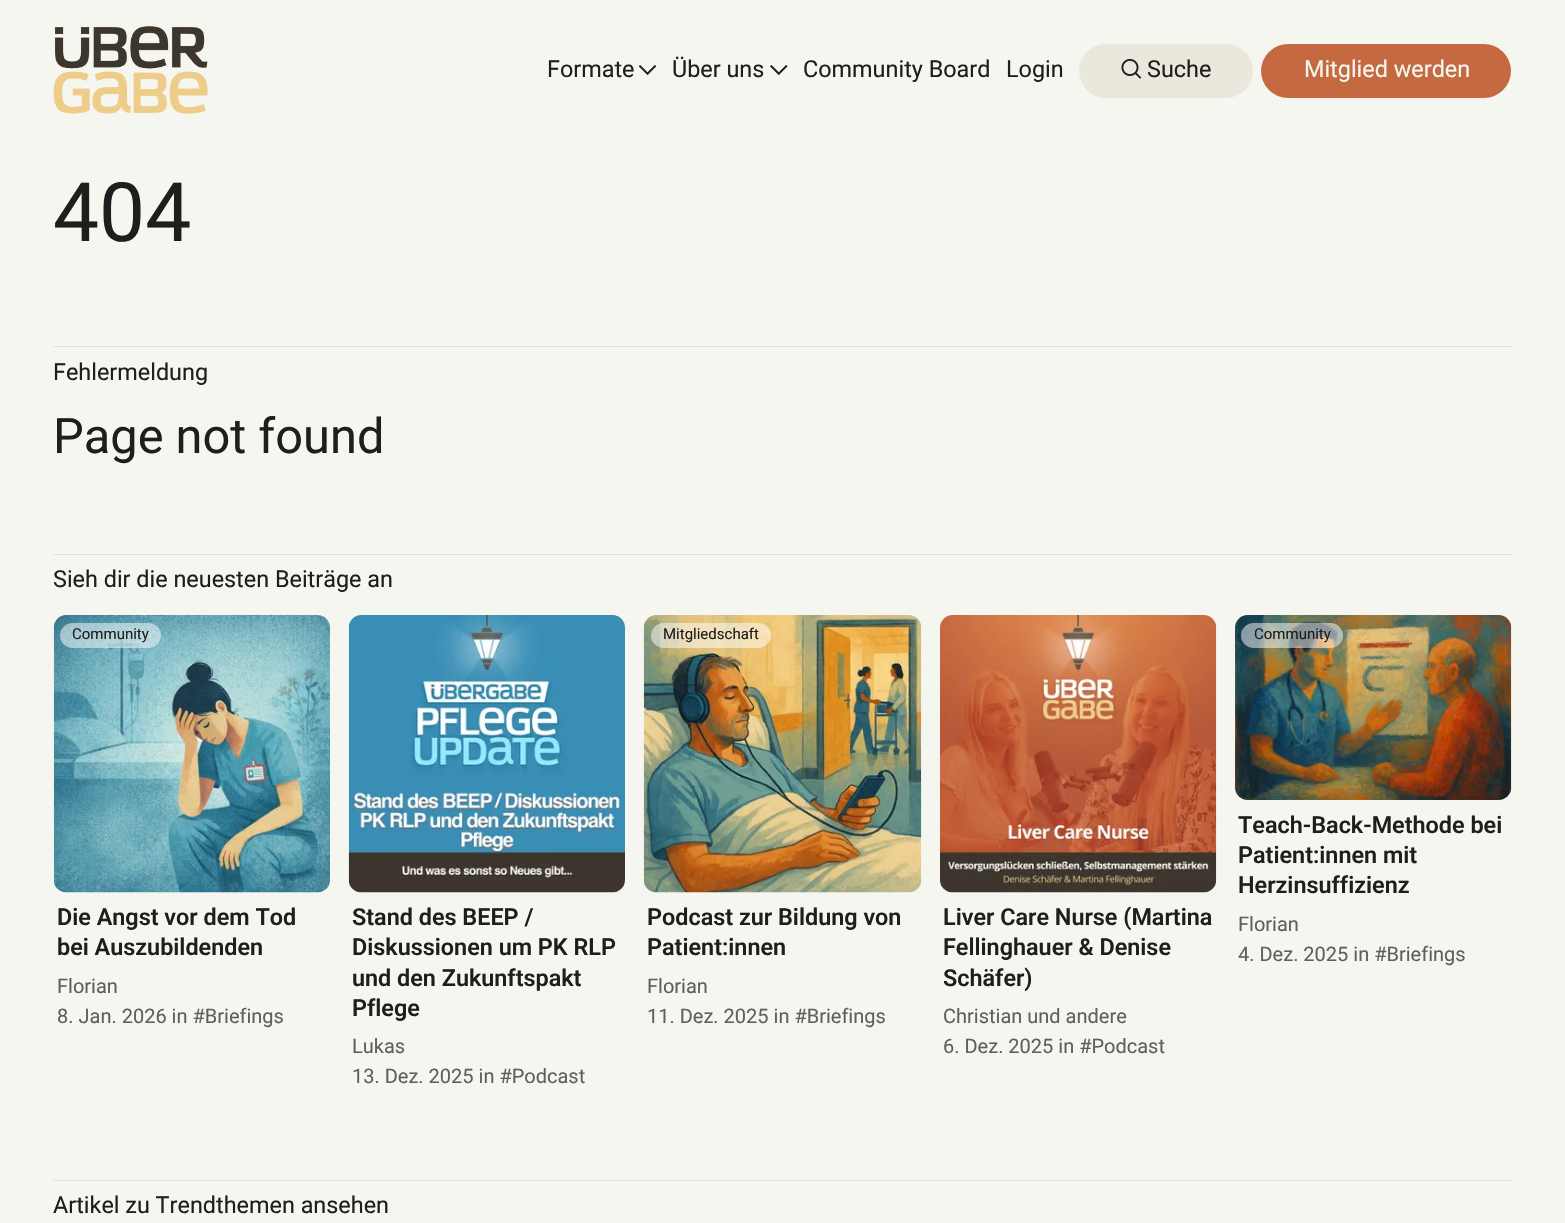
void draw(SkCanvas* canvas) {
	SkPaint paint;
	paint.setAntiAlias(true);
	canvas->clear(0xfff6f6f0);
	canvas->drawImageRect(SkImages::DeferredFromEncodedData(SkData::MakeFromFileName("img1.png")), SkRect::MakeXYWH(53, 26, 155, 88), SkSamplingOptions());
	SkFont f1(fontMgr->matchFamilyStyle("Roboto", SkFontStyle::Normal()), 23.4);
	f1.setSubpixel(true);
	paint.setColor(0xff1e1e1e);
	canvas->drawString("Formate", 547, 77, f1, paint);
	canvas->drawImageRect(SkImages::DeferredFromEncodedData(SkData::MakeFromFileName("img2.png")), SkRect::MakeXYWH(639, 65, 17, 10), SkSamplingOptions());
	canvas->drawString("Über uns", 672, 77, f1, paint);
	canvas->drawImageRect(SkImages::DeferredFromEncodedData(SkData::MakeFromFileName("img3.png")), SkRect::MakeXYWH(770, 65, 18, 10), SkSamplingOptions());
	canvas->drawString("Community Board", 803, 77, f1, paint);
	canvas->drawString("Login", 1006, 77, f1, paint);
	paint.setColor(0xffeae8dd);
	canvas->drawRoundRect(SkRect::MakeXYWH(1079, 44, 174, 54), 27, 27, paint);
	canvas->drawImageRect(SkImages::DeferredFromEncodedData(SkData::MakeFromFileName("img4.png")), SkRect::MakeXYWH(1121, 59, 20, 20), SkSamplingOptions());
	paint.setColor(0xff1e1e1e);
	canvas->drawString("Suche", 1147, 77, f1, paint);
	paint.setColor(0xffc46940);
	canvas->drawRoundRect(SkRect::MakeXYWH(1261, 44, 250, 54), 27, 27, paint);
	paint.setColor(0xfff6f6f0);
	canvas->drawString("Mitglied werden", 1304, 77, f1, paint);
	SkFont f2(fontMgr->matchFamilyStyle("Roboto", SkFontStyle::Normal()), 82);
	f2.setSubpixel(true);
	paint.setColor(0xff1e1e1e);
	canvas->drawString("404", 53, 241, f2, paint);
	paint.setColor(0xffe1dfd5);
	canvas->drawRect(SkRect::MakeXYWH(54, 346, 1457, 1), paint);
	paint.setColor(0xff1e1e1e);
	canvas->drawString("Fehlermeldung", 53, 380, f1, paint);
	SkFont f3(fontMgr->matchFamilyStyle("Roboto", SkFontStyle::Normal()), 48.75);
	f3.setSubpixel(true);
	canvas->drawString("Page not found", 53, 453, f3, paint);
	paint.setColor(0xffe1dfd5);
	canvas->drawRect(SkRect::MakeXYWH(54, 554, 1457, 1), paint);
	paint.setColor(0xff1e1e1e);
	canvas->drawString("Sieh dir die neuesten Beiträge an", 53, 587, f1, paint);
	canvas->drawImageRect(SkImages::DeferredFromEncodedData(SkData::MakeFromFileName("img5.png")), SkRect::MakeXYWH(53, 615, 277, 278), SkSamplingOptions());
	paint.setColor(0x80ffffff);
	canvas->drawRoundRect(SkRect::MakeXYWH(60, 623, 101, 25), 12.5, 12.5, paint);
	SkFont f4(fontMgr->matchFamilyStyle("Roboto", SkFontStyle::Normal()), 15);
	f4.setSubpixel(true);
	paint.setColor(0xff1e1e1e);
	canvas->drawString("Community", 72, 639, f4, paint);
	SkFont f5(fontMgr->matchFamilyStyle("Roboto", SkFontStyle(600, SkFontStyle::kNormal_Width, SkFontStyle::kUpright_Slant)), 23.4);
	f5.setSubpixel(true);
	canvas->drawString("Die Angst vor dem Tod", 57, 925, f5, paint);
	canvas->drawString("bei Auszubildenden", 57, 955, f5, paint);
	SkFont f6(fontMgr->matchFamilyStyle("Roboto", SkFontStyle::Normal()), 20);
	f6.setSubpixel(true);
	paint.setColor(0xff5f5f5d);
	canvas->drawString("Florian", 57, 993, f6, paint);
	canvas->drawString("8. Jan. 2026 in #Briefings", 57, 1023, f6, paint);
	canvas->drawImageRect(SkImages::DeferredFromEncodedData(SkData::MakeFromFileName("img6.png")), SkRect::MakeXYWH(348, 615, 277, 278), SkSamplingOptions());
	paint.setColor(0xff1e1e1e);
	canvas->drawString("Stand des BEEP /", 352, 925, f5, paint);
	canvas->drawString("Diskussionen um PK RLP", 352, 955, f5, paint);
	canvas->drawString("und den Zukunftspakt", 352, 986, f5, paint);
	canvas->drawString("Pflege", 352, 1016, f5, paint);
	paint.setColor(0xff5f5f5d);
	canvas->drawString("Lukas", 352, 1053, f6, paint);
	canvas->drawString("13. Dez. 2025 in #Podcast", 352, 1083, f6, paint);
	canvas->drawImageRect(SkImages::DeferredFromEncodedData(SkData::MakeFromFileName("img7.png")), SkRect::MakeXYWH(643, 615, 279, 278), SkSamplingOptions());
	paint.setColor(0x80ffffff);
	canvas->drawRoundRect(SkRect::MakeXYWH(651, 623, 120, 25), 12.5, 12.5, paint);
	paint.setColor(0xff1e1e1e);
	canvas->drawString("Mitgliedschaft", 663, 639, f4, paint);
	canvas->drawString("Podcast zur Bildung von", 647, 925, f5, paint);
	canvas->drawString("Patient:innen", 647, 955, f5, paint);
	paint.setColor(0xff5f5f5d);
	canvas->drawString("Florian", 647, 993, f6, paint);
	canvas->drawString("11. Dez. 2025 in #Briefings", 647, 1023, f6, paint);
	canvas->drawImageRect(SkImages::DeferredFromEncodedData(SkData::MakeFromFileName("img8.png")), SkRect::MakeXYWH(940, 615, 277, 278), SkSamplingOptions());
	paint.setColor(0xff1e1e1e);
	canvas->drawString("Liver Care Nurse (Martina", 943, 925, f5, paint);
	canvas->drawString("Fellinghauer & Denise", 943, 955, f5, paint);
	canvas->drawString("Schäfer)", 943, 986, f5, paint);
	paint.setColor(0xff5f5f5d);
	canvas->drawString("Christian und andere", 943, 1023, f6, paint);
	canvas->drawString("6. Dez. 2025 in #Podcast", 943, 1053, f6, paint);
	canvas->drawImageRect(SkImages::DeferredFromEncodedData(SkData::MakeFromFileName("img9.png")), SkRect::MakeXYWH(1235, 615, 277, 185), SkSamplingOptions());
	paint.setColor(0x80ffffff);
	canvas->drawRoundRect(SkRect::MakeXYWH(1241, 623, 102, 25), 12.5, 12.5, paint);
	paint.setColor(0xff1e1e1e);
	canvas->drawString("Community", 1254, 639, f4, paint);
	canvas->drawString("Teach-Back-Methode bei", 1238, 833, f5, paint);
	canvas->drawString("Patient:innen mit", 1238, 863, f5, paint);
	canvas->drawString("Herzinsuffizienz", 1238, 893, f5, paint);
	paint.setColor(0xff5f5f5d);
	canvas->drawString("Florian", 1238, 931, f6, paint);
	canvas->drawString("4. Dez. 2025 in #Briefings", 1238, 961, f6, paint);
	paint.setColor(0xffe1dfd5);
	canvas->drawRect(SkRect::MakeXYWH(54, 1180, 1457, 1), paint);
	paint.setColor(0xff1e1e1e);
	canvas->drawString("Artikel zu Trendthemen ansehen", 53, 1213, f1, paint);
}
